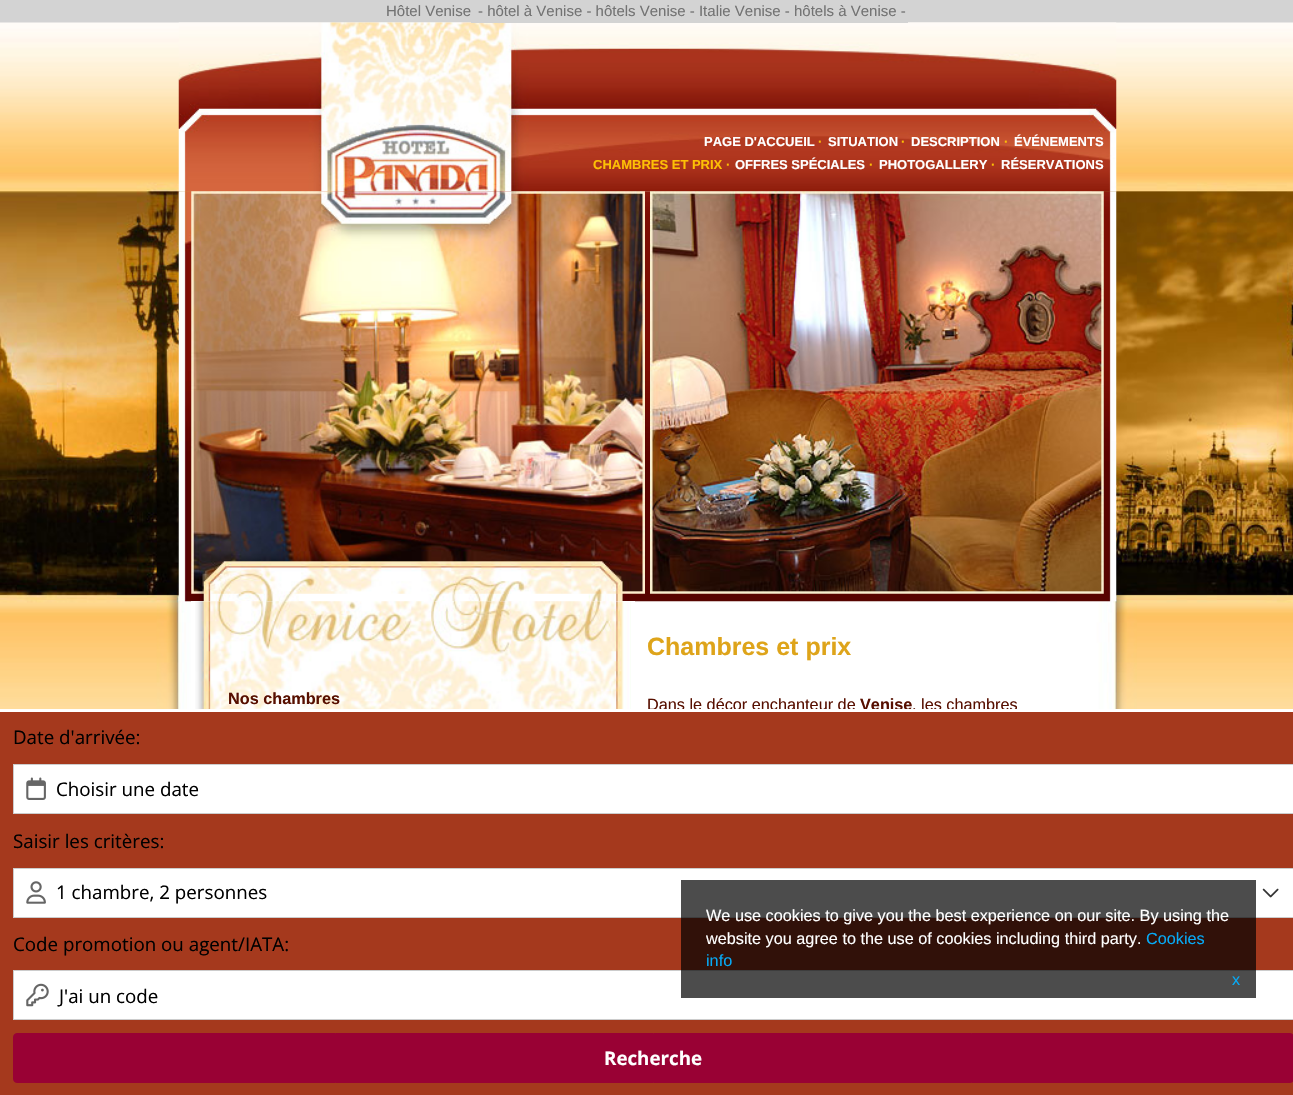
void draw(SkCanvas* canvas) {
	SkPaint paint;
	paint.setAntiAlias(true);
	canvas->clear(0xffd3d3d3);
	SkFont f1(fontMgr->matchFamilyStyle("Liberation Sans", SkFontStyle::Normal()), 15);
	f1.setSubpixel(true);
	paint.setColor(0xff737373);
	canvas->drawString("Hôtel Venise", 386, 16, f1, paint);
	canvas->drawString("- hôtel à Venise - hôtels Venise - Italie Venise - hôtels à Venise -", 478, 16, f1, paint);
	canvas->drawImageRect(SkImages::DeferredFromEncodedData(SkData::MakeFromFileName("img1.png")), SkRect::MakeXYWH(0, 22, 1293, 687), SkSamplingOptions());
	canvas->drawImageRect(SkImages::DeferredFromEncodedData(SkData::MakeFromFileName("img2.png")), SkRect::MakeXYWH(178, 22, 939, 170), SkSamplingOptions());
	paint.setColor(0xffd3d3d3);
	canvas->drawRect(SkRect::MakeXYWH(471, 22, 437, 1), paint);
	SkFont f2(fontMgr->matchFamilyStyle("Liberation Sans", SkFontStyle::Bold()), 13);
	f2.setSubpixel(true);
	paint.setColor(0xffffffff);
	canvas->drawString("PAGE D'ACCUEIL", 704, 146, f2, paint);
	paint.setColor(0xfffdc005);
	canvas->drawString("·", 818, 146, f2, paint);
	paint.setColor(0xffffffff);
	canvas->drawString("SITUATION", 828, 146, f2, paint);
	paint.setColor(0xfffdc005);
	canvas->drawString("·", 901, 146, f2, paint);
	paint.setColor(0xffffffff);
	canvas->drawString("DESCRIPTION", 911, 146, f2, paint);
	paint.setColor(0xfffdc005);
	canvas->drawString("·", 1004, 146, f2, paint);
	paint.setColor(0xffffffff);
	canvas->drawString("ÉVÉNEMENTS", 1014, 146, f2, paint);
	paint.setColor(0xfffdc005);
	canvas->drawString("CHAMBRES ET PRIX ·", 593, 169, f2, paint);
	paint.setColor(0xffffffff);
	canvas->drawString("OFFRES SPÉCIALES", 735, 169, f2, paint);
	paint.setColor(0xfffdc005);
	canvas->drawString("·", 869, 169, f2, paint);
	paint.setColor(0xffffffff);
	canvas->drawString("PHOTOGALLERY", 879, 169, f2, paint);
	paint.setColor(0xfffdc005);
	canvas->drawString("·", 991, 169, f2, paint);
	paint.setColor(0xffffffff);
	canvas->drawString("RÉSERVATIONS", 1001, 169, f2, paint);
	canvas->drawImageRect(SkImages::DeferredFromEncodedData(SkData::MakeFromFileName("img3.png")), SkRect::MakeXYWH(178, 191, 939, 411), SkSamplingOptions());
	canvas->drawImageRect(SkImages::DeferredFromEncodedData(SkData::MakeFromFileName("img4.png")), SkRect::MakeXYWH(191, 191, 454, 403), SkSamplingOptions());
	canvas->drawImageRect(SkImages::DeferredFromEncodedData(SkData::MakeFromFileName("img5.png")), SkRect::MakeXYWH(650, 191, 454, 403), SkSamplingOptions());
	SkFont f3(fontMgr->matchFamilyStyle("Liberation Sans", SkFontStyle::Bold()), 25);
	f3.setSubpixel(true);
	paint.setColor(0xffdea41a);
	canvas->drawString("Chambres et prix", 647, 655, f3, paint);
	SkFont f4(fontMgr->matchFamilyStyle("Liberation Sans", SkFontStyle::Normal()), 16.25);
	f4.setSubpixel(true);
	paint.setColor(0xff570f00);
	canvas->drawString("Dans le décor enchanteur de", 647, 710, f4, paint);
	SkFont f5(fontMgr->matchFamilyStyle("Liberation Sans", SkFontStyle::Bold()), 16.25);
	f5.setSubpixel(true);
	canvas->drawString("Venise", 860, 710, f5, paint);
	canvas->drawString(", les chambres", 912, 710, f4, paint);
	paint.setColor(0xffffffff);
	canvas->drawRect(SkRect::MakeXYWH(191, 601, 444, 108), paint);
	canvas->drawImageRect(SkImages::DeferredFromEncodedData(SkData::MakeFromFileName("img6.png")), SkRect::MakeXYWH(195, 601, 436, 108), SkSamplingOptions());
	paint.setColor(0xff570f00);
	canvas->drawString("Nos chambres", 228, 704, f5, paint);
	paint.setColor(0xffa5391d);
	canvas->drawRect(SkRect::MakeXYWH(0, 712, 1293, 383), paint);
	paint.setColor(0xffffffff);
	canvas->drawRect(SkRect::MakeXYWH(0, 709, 1293, 3), paint);
	SkFont f6(fontMgr->matchFamilyStyle("Open Sans", SkFontStyle::Normal()), 18.75);
	f6.setSubpixel(true);
	paint.setColor(0xff000000);
	canvas->drawString("Date d'arrivée:", 13, 744, f6, paint);
	paint.setColor(0xffffffff);
	canvas->drawRect(SkRect::MakeXYWH(13.5, 764.5, 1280, 49), paint);
	paint.setStroke(true);
	paint.setStrokeWidth(1);
	paint.setColor(0xffcccccc);
	canvas->drawRect(SkRect::MakeXYWH(13.5, 764.5, 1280, 49), paint);
	canvas->drawImageRect(SkImages::DeferredFromEncodedData(SkData::MakeFromFileName("img7.png")), SkRect::MakeXYWH(26, 777, 20, 23), SkSamplingOptions());
	paint.setStroke(false);
	paint.setColor(0xff000000);
	canvas->drawString("Choisir une date", 56, 796, f6, paint);
	canvas->drawString("Saisir les critères:", 13, 848, f6, paint);
	paint.setColor(0xffffffff);
	canvas->drawRect(SkRect::MakeXYWH(13.5, 868.5, 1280, 49), paint);
	paint.setStroke(true);
	paint.setColor(0xffcccccc);
	canvas->drawRect(SkRect::MakeXYWH(13.5, 868.5, 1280, 49), paint);
	canvas->drawImageRect(SkImages::DeferredFromEncodedData(SkData::MakeFromFileName("img8.png")), SkRect::MakeXYWH(26, 881, 20, 23), SkSamplingOptions());
	paint.setStroke(false);
	paint.setColor(0xff000000);
	canvas->drawString("1 chambre, 2 personnes", 56, 899, f6, paint);
	canvas->drawImageRect(SkImages::DeferredFromEncodedData(SkData::MakeFromFileName("img9.png")), SkRect::MakeXYWH(1262, 888, 17, 10), SkSamplingOptions());
	canvas->drawString("Code promotion ou agent/IATA:", 13, 951, f6, paint);
	paint.setColor(0xffffffff);
	canvas->drawRect(SkRect::MakeXYWH(13.5, 970.5, 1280, 49), paint);
	paint.setStroke(true);
	paint.setColor(0xffcccccc);
	canvas->drawRect(SkRect::MakeXYWH(13.5, 970.5, 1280, 49), paint);
	canvas->drawImageRect(SkImages::DeferredFromEncodedData(SkData::MakeFromFileName("img10.png")), SkRect::MakeXYWH(26, 983, 23, 24), SkSamplingOptions());
	paint.setStroke(false);
	paint.setColor(0xff000000);
	canvas->drawString("J'ai un code", 59, 1003, f6, paint);
	paint.setColor(0xff990134);
	canvas->drawRoundRect(SkRect::MakeXYWH(13.5, 1033.5, 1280, 49), 3.5, 3.5, paint);
	paint.setStroke(true);
	canvas->drawRoundRect(SkRect::MakeXYWH(13.5, 1033.5, 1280, 49), 3.5, 3.5, paint);
	SkFont f7(fontMgr->matchFamilyStyle("Open Sans", SkFontStyle::Bold()), 18.75);
	f7.setSubpixel(true);
	paint.setStroke(false);
	paint.setColor(0xffffffff);
	canvas->drawString("Recherche", 604, 1065, f7, paint);
	paint.setColor(0xb3000000);
	canvas->drawRect(SkRect::MakeXYWH(681, 880, 575, 118), paint);
	paint.setColor(0xffffffff);
	canvas->drawString("We use cookies to give you the best experience on our site. By using the", 706, 921, f4, paint);
	canvas->drawString("website you agree to the use of cookies including third party.", 706, 944, f4, paint);
	paint.setColor(0xff06aaf6);
	canvas->drawString("Cookies", 1146, 944, f4, paint);
	canvas->drawString("info", 706, 966, f4, paint);
	canvas->drawString("x", 1232, 985, f4, paint);
}
